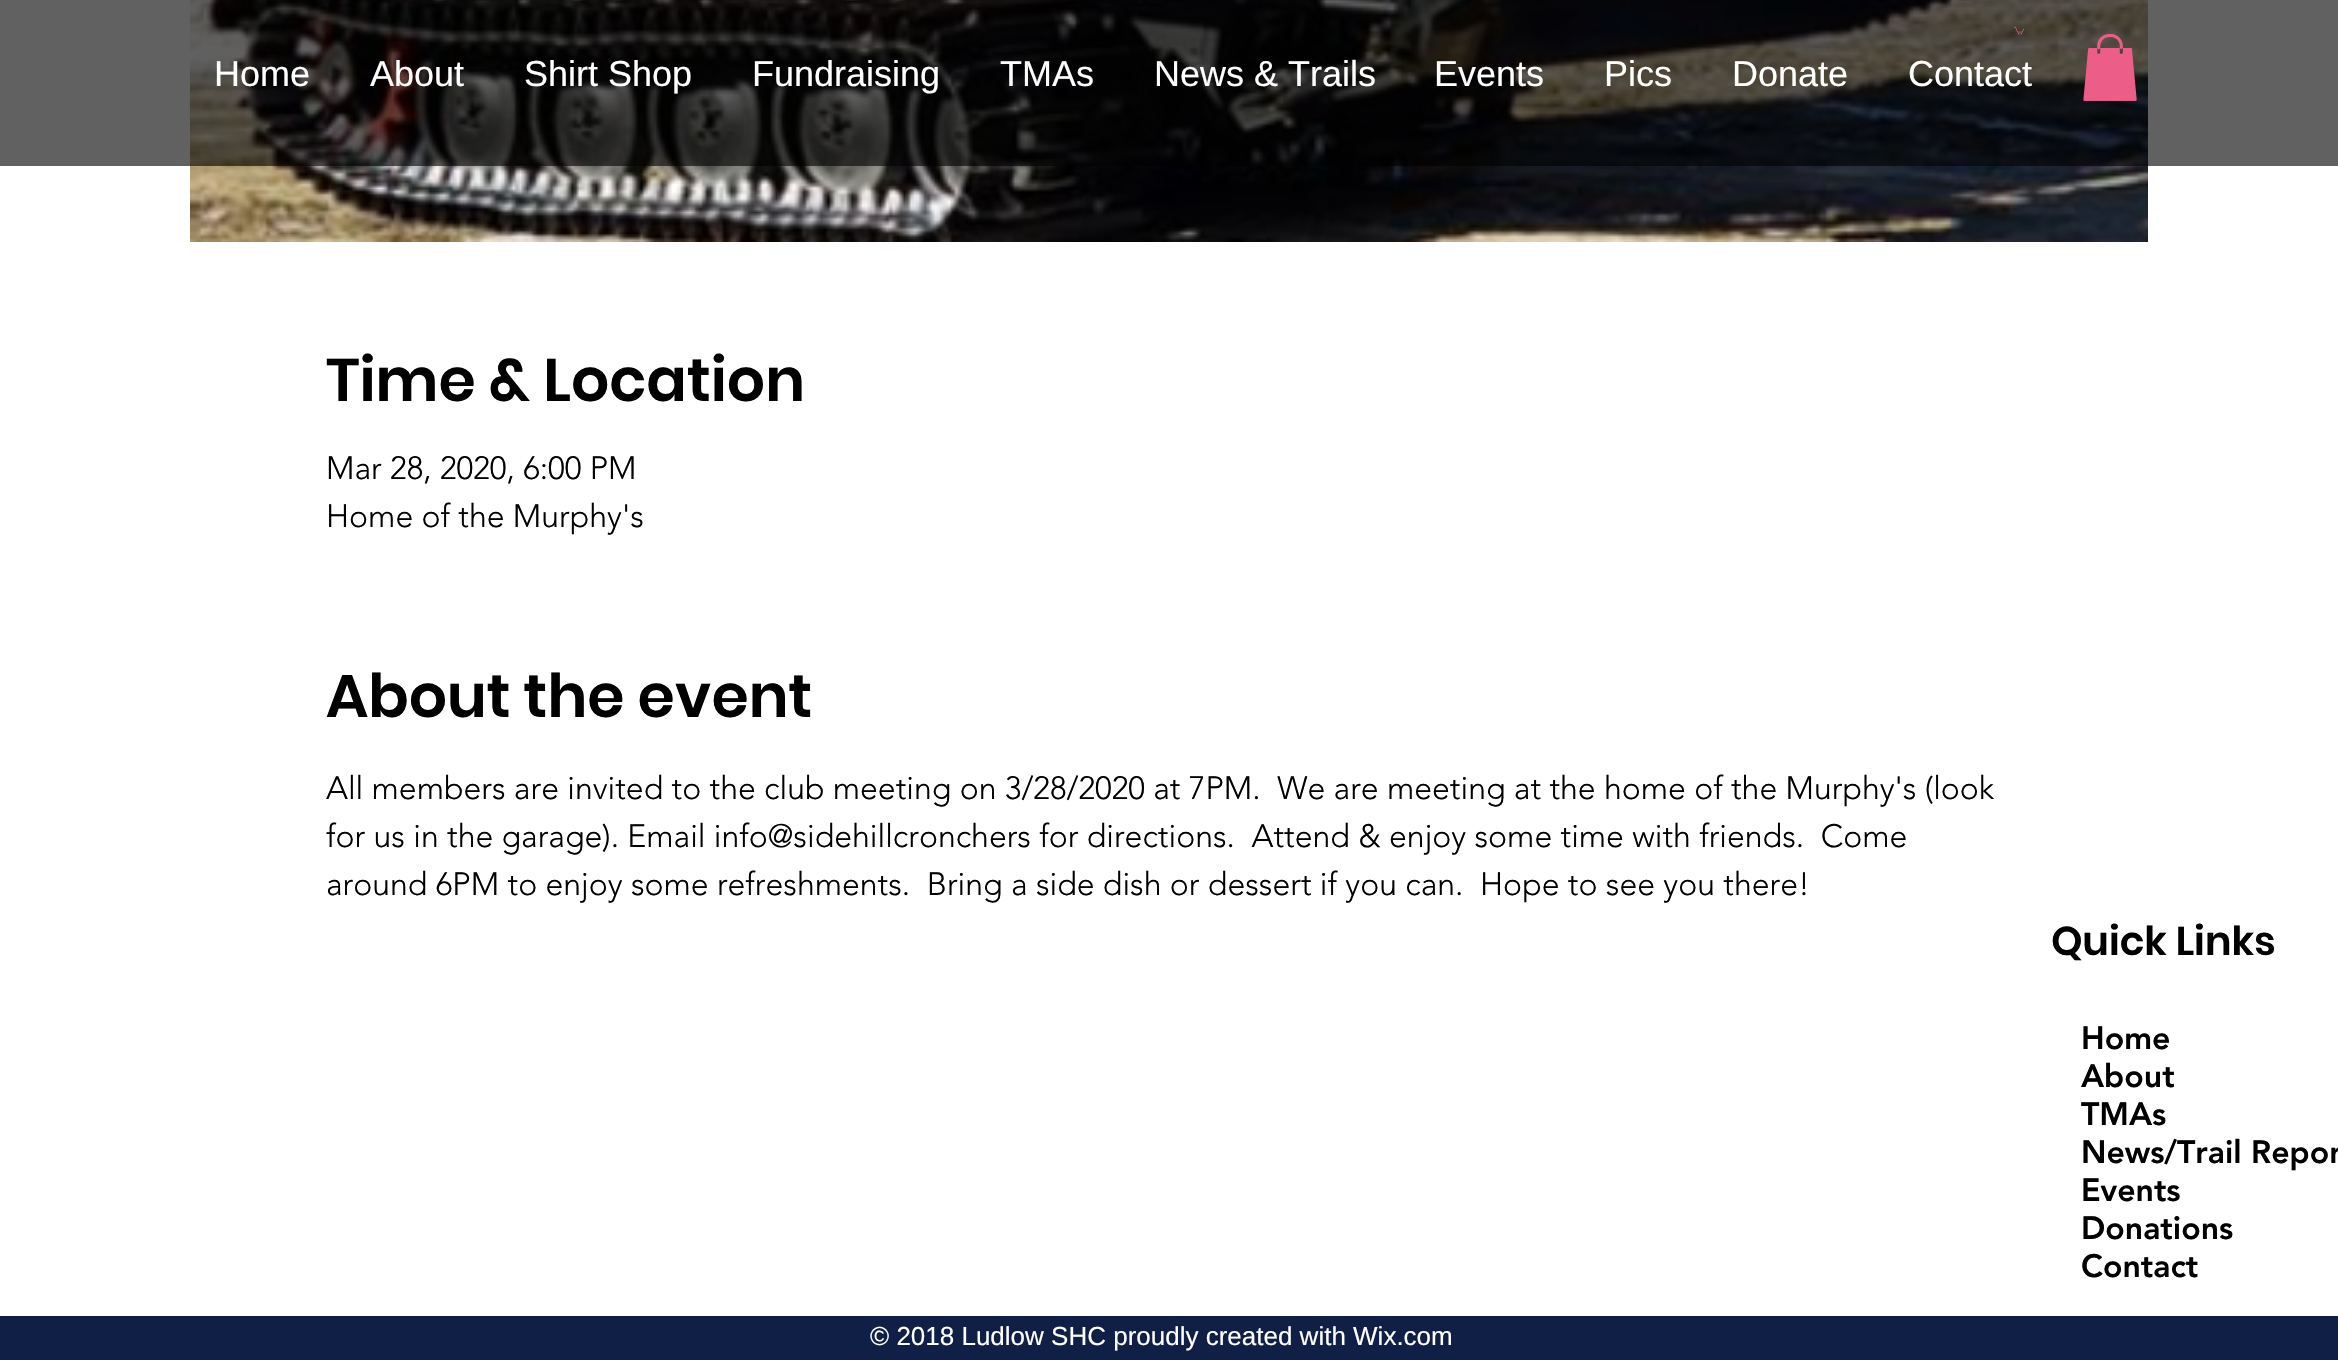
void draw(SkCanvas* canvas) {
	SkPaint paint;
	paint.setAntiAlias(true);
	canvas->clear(0xffffffff);
	canvas->drawImageRect(SkImages::DeferredFromEncodedData(SkData::MakeFromFileName("img3.png")), SkRect::MakeXYWH(190, 0, 1958, 242), SkSamplingOptions());
	paint.setColor(0x9e000000);
	canvas->drawRect(SkRect::MakeXYWH(0, 0, 2338, 166), paint);
	canvas->drawImageRect(SkImages::DeferredFromEncodedData(SkData::MakeFromFileName("img1.png")), SkRect::MakeXYWH(2014, 26, 10, 9), SkSamplingOptions());
	SkFont f1(fontMgr->matchFamilyStyle("Liberation Sans", SkFontStyle::Normal()), 36);
	f1.setSubpixel(true);
	paint.setColor(0xffffffff);
	canvas->drawString("Home", 214, 86, f1, paint);
	canvas->drawString("About", 370, 86, f1, paint);
	canvas->drawString("Shirt Shop", 524, 86, f1, paint);
	canvas->drawString("Fundraising", 752, 86, f1, paint);
	canvas->drawString("TMAs", 1000, 86, f1, paint);
	canvas->drawString("News & Trails", 1154, 86, f1, paint);
	canvas->drawString("Events", 1434, 86, f1, paint);
	canvas->drawString("Pics", 1604, 86, f1, paint);
	canvas->drawString("Donate", 1732, 86, f1, paint);
	canvas->drawString("Contact", 1908, 86, f1, paint);
	canvas->drawImageRect(SkImages::DeferredFromEncodedData(SkData::MakeFromFileName("img2.png")), SkRect::MakeXYWH(2083, 34, 54, 67), SkSamplingOptions());
	SkFont f2(fontMgr->matchFamilyStyle("Poppins", SkFontStyle(600, SkFontStyle::kNormal_Width, SkFontStyle::kUpright_Slant)), 60);
	f2.setSubpixel(true);
	paint.setColor(0xff000000);
	canvas->drawString("Time & Location", 326, 401, f2, paint);
	SkFont f3(fontMgr->matchFamilyStyle("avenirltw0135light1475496", SkFontStyle(300, SkFontStyle::kNormal_Width, SkFontStyle::kUpright_Slant)), 32);
	f3.setSubpixel(true);
	canvas->drawString("Mar 28, 2020, 6:00 PM", 326, 479, f3, paint);
	canvas->drawString("Home of the Murphy's", 326, 527, f3, paint);
	canvas->drawString("About the event", 326, 717, f2, paint);
	canvas->drawString("All members are invited to the club meeting on 3/28/2020 at 7PM.  We are meeting at the home of the Murphy's (look", 326, 799, f3, paint);
	canvas->drawString("for us in the garage). Email info@sidehillcronchers for directions.  Attend & enjoy some time with friends.  Come", 326, 847, f3, paint);
	canvas->drawString("around 6PM to enjoy some refreshments.  Bring a side dish or dessert if you can.  Hope to see you there!", 326, 895, f3, paint);
	SkFont f4(fontMgr->matchFamilyStyle("Poppins", SkFontStyle(600, SkFontStyle::kNormal_Width, SkFontStyle::kUpright_Slant)), 40);
	f4.setSubpixel(true);
	canvas->drawString("Quick Links", 2051, 955, f4, paint);
	SkFont f5(fontMgr->matchFamilyStyle("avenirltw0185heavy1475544", SkFontStyle(900, SkFontStyle::kNormal_Width, SkFontStyle::kUpright_Slant)), 32);
	f5.setSubpixel(true);
	canvas->drawString("Home", 2081, 1049, f5, paint);
	canvas->drawString("About", 2081, 1087, f5, paint);
	canvas->drawString("TMAs", 2081, 1125, f5, paint);
	canvas->drawString("News/Trail Repor", 2081, 1163, f5, paint);
	canvas->drawString("Events", 2081, 1201, f5, paint);
	canvas->drawString("Donations", 2081, 1239, f5, paint);
	canvas->drawString("Contact", 2081, 1277, f5, paint);
	paint.setColor(0xff101f46);
	canvas->drawRect(SkRect::MakeXYWH(0, 1316, 2338, 44), paint);
	SkFont f6(fontMgr->matchFamilyStyle("Liberation Sans", SkFontStyle::Normal()), 26);
	f6.setSubpixel(true);
	paint.setColor(0xffffffff);
	canvas->drawString("© 2018 Ludlow SHC proudly created with Wix.com", 870, 1345, f6, paint);
}
